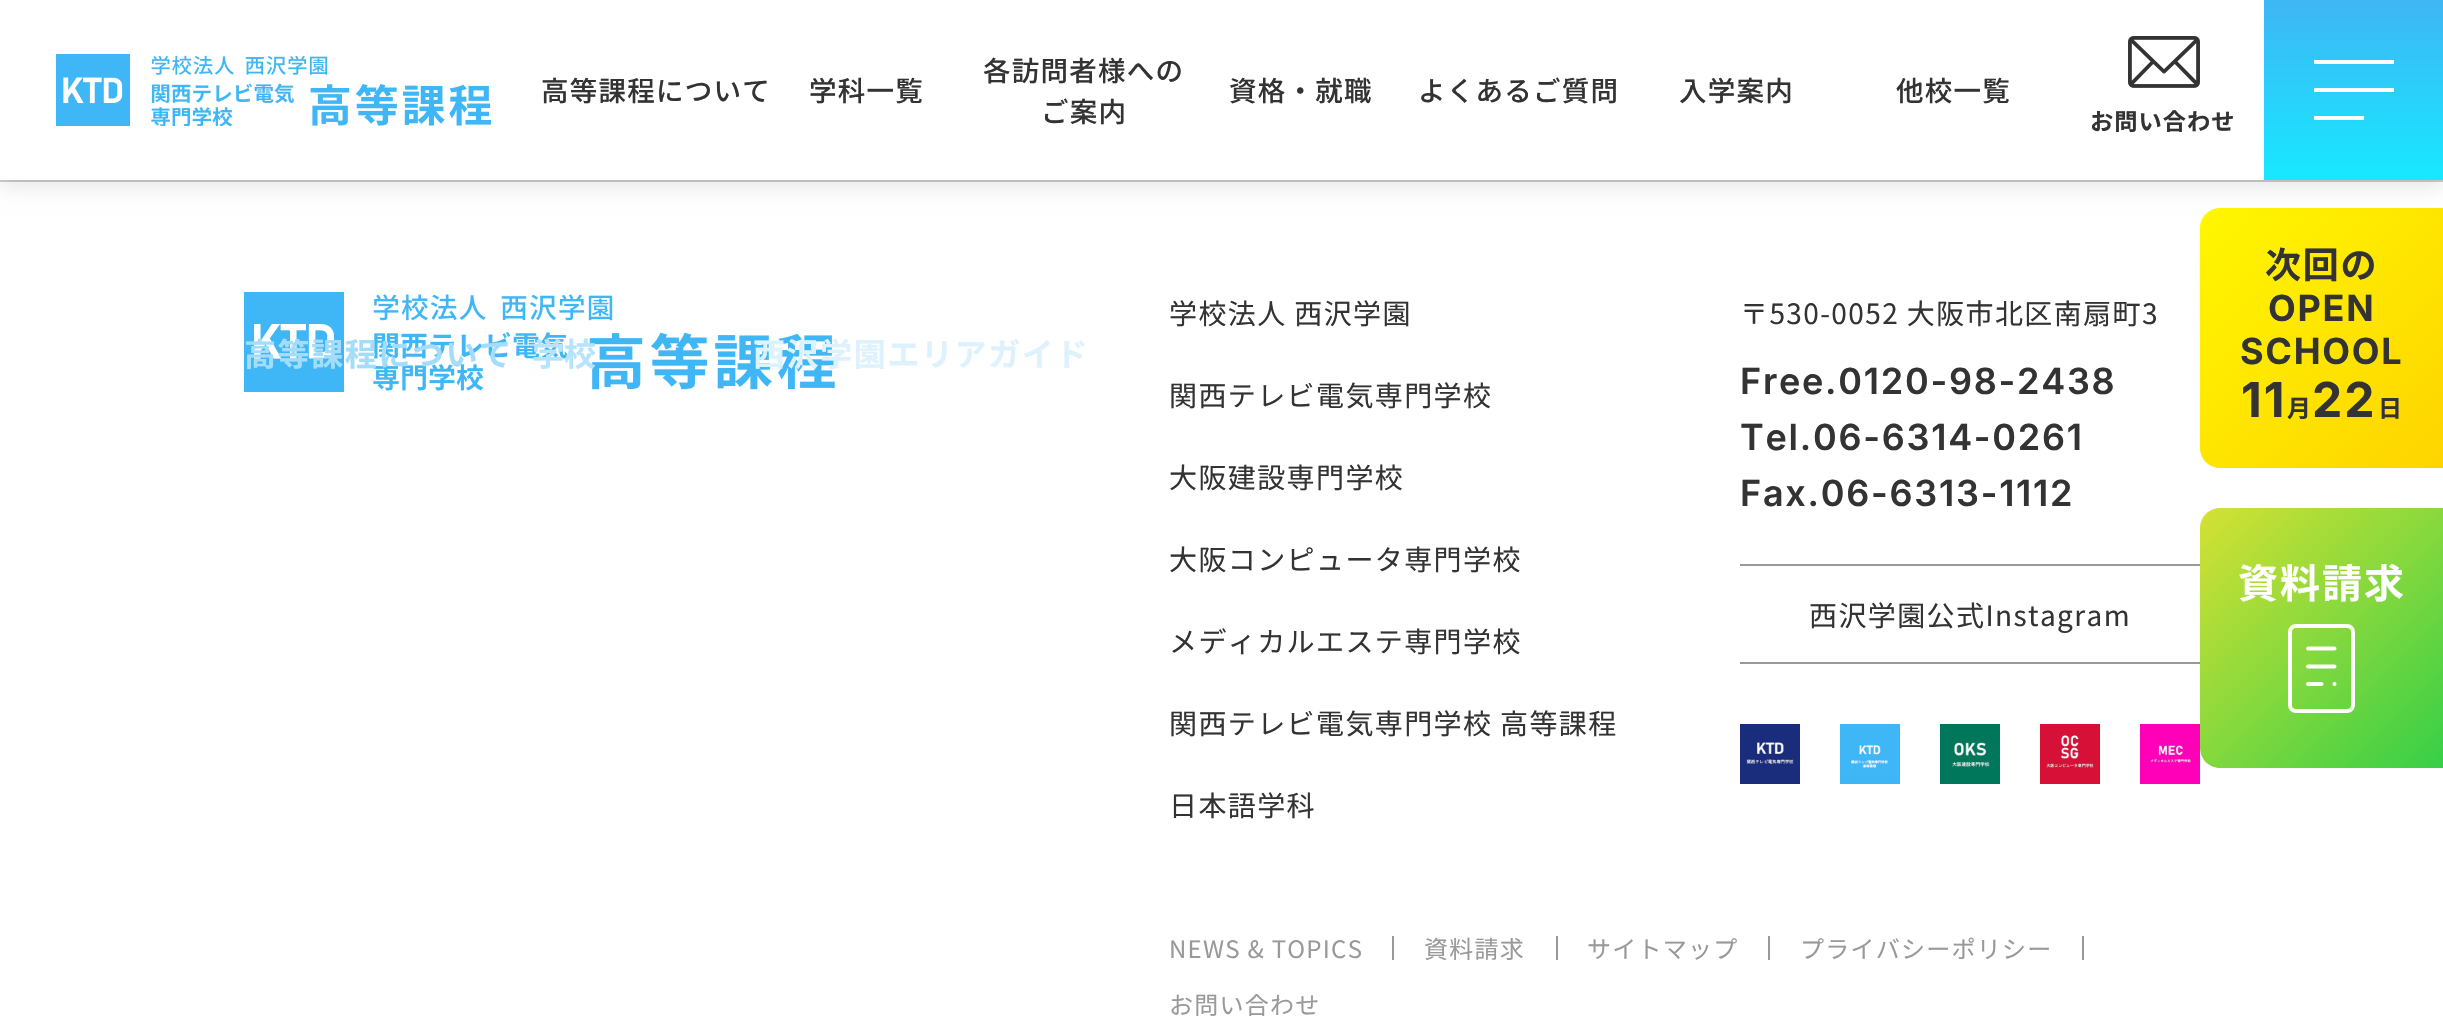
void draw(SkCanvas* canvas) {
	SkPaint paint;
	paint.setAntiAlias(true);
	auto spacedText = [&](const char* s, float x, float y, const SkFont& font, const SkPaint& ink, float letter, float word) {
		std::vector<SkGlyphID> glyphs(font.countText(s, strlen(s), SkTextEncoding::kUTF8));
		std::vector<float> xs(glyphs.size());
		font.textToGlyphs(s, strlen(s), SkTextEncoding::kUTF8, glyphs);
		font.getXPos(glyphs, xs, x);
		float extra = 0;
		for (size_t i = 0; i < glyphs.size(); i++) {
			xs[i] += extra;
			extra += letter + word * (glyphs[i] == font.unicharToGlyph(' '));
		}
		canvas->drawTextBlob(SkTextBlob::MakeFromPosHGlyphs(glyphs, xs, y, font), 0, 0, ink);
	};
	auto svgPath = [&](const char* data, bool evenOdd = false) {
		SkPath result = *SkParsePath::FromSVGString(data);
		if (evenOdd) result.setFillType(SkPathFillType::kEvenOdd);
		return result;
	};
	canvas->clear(0xffffffff);
	paint.setColor(0xffcccccc);
	canvas->drawRect(SkRect::MakeXYWH(0, 180, 2443, 2), paint);
	{
		const SkColor colors[] = {0xfffed400, 0xfffff700};
		const float stops[] = {0, 1};
		const SkPoint ends[] = {{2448, 464}, {2196, 212}};
		paint.setShader(SkGradientShader::MakeLinear(ends, colors, stops, 2, SkTileMode::kClamp));
		paint.setAlpha(255);
	}
	canvas->drawPath(svgPath("M2220 208H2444V468H2220C2209 468 2200 459 2200 448V228C2200 217 2209 208 2220 208Z"), paint);
	paint.setShader(nullptr);
	paint.setColor(0x1a000000);
	paint.setMaskFilter(SkMaskFilter::MakeBlur(kNormal_SkBlurStyle, 10));
	canvas->drawRect(SkRect::MakeXYWH(0, 6, 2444, 180), paint);
	paint.setMaskFilter(nullptr);
	paint.setColor(0xffffffff);
	canvas->drawRect(SkRect::MakeXYWH(0, 0, 2264, 180), paint);
	canvas->drawImageRect(SkImages::DeferredFromEncodedData(SkData::MakeFromFileName("img1.png")), SkRect::MakeXYWH(56, 54, 435, 72), SkSamplingOptions());
	{
		const SkColor colors[] = {0xff17e8ff, 0xff3fb6f5};
		const float stops[] = {0, 1};
		const SkPoint ends[] = {{2354, 180}, {2354, 0}};
		paint.setShader(SkGradientShader::MakeLinear(ends, colors, stops, 2, SkTileMode::kClamp));
		paint.setAlpha(255);
	}
	canvas->drawRect(SkRect::MakeXYWH(2264, 0, 179, 180), paint);
	paint.setShader(nullptr);
	paint.setColor(0xffffffff);
	canvas->drawRect(SkRect::MakeXYWH(2314, 88, 80, 4), paint);
	canvas->drawRect(SkRect::MakeXYWH(2314, 60, 80, 4), paint);
	canvas->drawRect(SkRect::MakeXYWH(2314, 116, 50, 4), paint);
	SkFont f1(fontMgr->matchFamilyStyle("Noto Sans JP", SkFontStyle(500, SkFontStyle::kNormal_Width, SkFontStyle::kUpright_Slant)), 27.5);
	f1.setSubpixel(true);
	paint.setColor(0xff333333);
	spacedText("各訪問者様への", 983, 81, f1, paint, 1.25, 0);
	spacedText("ご案内", 1041, 122, f1, paint, 1.25, 0);
	spacedText("高等課程について", 541, 101, f1, paint, 1.25, 0);
	canvas->drawImageRect(SkImages::DeferredFromEncodedData(SkData::MakeFromFileName("img3.png")), SkRect::MakeXYWH(244, 292, 591, 100), SkSamplingOptions());
	SkFont f2(fontMgr->matchFamilyStyle("Noto Sans JP", SkFontStyle::Bold()), 32);
	f2.setSubpixel(true);
	paint.setColor(0xffa4ddfa);
	spacedText("高等課程について", 244, 366, f2, paint, 1.6, 0);
	paint.setColor(0xffdef2fd);
	spacedText("西沢学園エリアガイド", 753, 366, f2, paint, 1.6, 0);
	paint.setColor(0xff333333);
	spacedText("他校一覧", 1896, 101, f1, paint, 1.25, 0);
	paint.setColor(0xffb7e4fb);
	canvas->drawString("学校", 532, 366, f2, paint);
	paint.setColor(0xff333333);
	spacedText("学科一覧", 809, 101, f1, paint, 1.25, 0);
	spacedText("資格・就職", 1229, 101, f1, paint, 1.25, 0);
	spacedText("よくあるご質問", 1418, 101, f1, paint, 1.25, 0);
	spacedText("入学案内", 1679, 101, f1, paint, 1.25, 0);
	canvas->drawImageRect(SkImages::DeferredFromEncodedData(SkData::MakeFromFileName("img2.png")), SkRect::MakeXYWH(2128, 36, 72, 52), SkSamplingOptions());
	SkFont f3(fontMgr->matchFamilyStyle("Noto Sans JP", SkFontStyle::Bold()), 23.25);
	f3.setSubpixel(true);
	spacedText("お問い合わせ", 2090, 130, f3, paint, 1, 0);
	SkFont f4(fontMgr->matchFamilyStyle("Noto Sans JP", SkFontStyle::Normal()), 28);
	f4.setSubpixel(true);
	spacedText("学校法人 西沢学園", 1169, 324, f4, paint, 1.4, 0);
	spacedText("関西テレビ電気専門学校", 1169, 406, f4, paint, 1.4, 0);
	spacedText("大阪建設専門学校", 1169, 488, f4, paint, 1.4, 0);
	spacedText("大阪コンピュータ専門学校", 1169, 570, f4, paint, 1.4, 0);
	spacedText("メディカルエステ専門学校", 1169, 652, f4, paint, 1.4, 0);
	spacedText("関西テレビ電気専門学校 高等課程", 1169, 734, f4, paint, 1.4, 0);
	spacedText("日本語学科", 1169, 816, f4, paint, 1.4, 0);
	spacedText("〒530-0052 大阪市北区南扇町3", 1740, 324, f4, paint, 1.4, 0);
	SkFont f5(fontMgr->matchFamilyStyle("Inter", SkFontStyle(600, SkFontStyle::kNormal_Width, SkFontStyle::kUpright_Slant)), 36);
	f5.setSubpixel(true);
	spacedText("Free.0120-98-2438", 1740, 394, f5, paint, 1.75, 0);
	spacedText("Tel.06-6314-0261", 1740, 450, f5, paint, 1.75, 0);
	spacedText("Fax.06-6313-1112", 1740, 506, f5, paint, 1.75, 0);
	paint.setColor(0xff999999);
	canvas->drawRect(SkRect::MakeXYWH(1740, 564, 460, 2), paint);
	canvas->drawRect(SkRect::MakeXYWH(1740, 662, 460, 2), paint);
	paint.setColor(0xff333333);
	spacedText("西沢学園公式Instagram", 1809, 626, f4, paint, 1.4, 0);
	canvas->drawImageRect(SkImages::DeferredFromEncodedData(SkData::MakeFromFileName("img4.png")), SkRect::MakeXYWH(1740, 724, 60, 60), SkSamplingOptions());
	canvas->drawImageRect(SkImages::DeferredFromEncodedData(SkData::MakeFromFileName("img5.png")), SkRect::MakeXYWH(1840, 724, 60, 60), SkSamplingOptions());
	canvas->drawImageRect(SkImages::DeferredFromEncodedData(SkData::MakeFromFileName("img6.png")), SkRect::MakeXYWH(1940, 724, 60, 60), SkSamplingOptions());
	canvas->drawImageRect(SkImages::DeferredFromEncodedData(SkData::MakeFromFileName("img7.png")), SkRect::MakeXYWH(2040, 724, 60, 60), SkSamplingOptions());
	canvas->drawImageRect(SkImages::DeferredFromEncodedData(SkData::MakeFromFileName("img8.png")), SkRect::MakeXYWH(2140, 724, 60, 60), SkSamplingOptions());
	paint.setColor(0xff999999);
	canvas->drawRect(SkRect::MakeXYWH(1392, 936, 2, 24), paint);
	SkFont f6(fontMgr->matchFamilyStyle("Noto Sans JP", SkFontStyle::Normal()), 24);
	f6.setSubpixel(true);
	spacedText("NEWS & TOPICS", 1169, 958, f6, paint, 1.25, 0);
	canvas->drawRect(SkRect::MakeXYWH(1556, 936, 2, 24), paint);
	spacedText("資料請求", 1424, 958, f6, paint, 1.25, 0);
	canvas->drawRect(SkRect::MakeXYWH(1768, 936, 2, 24), paint);
	spacedText("サイトマップ", 1587, 958, f6, paint, 1.25, 0);
	canvas->drawRect(SkRect::MakeXYWH(2082, 936, 2, 24), paint);
	spacedText("プライバシーポリシー", 1800, 958, f6, paint, 1.25, 0);
	spacedText("お問い合わせ", 1169, 1014, f6, paint, 1.25, 0);
	SkFont f7(fontMgr->matchFamilyStyle("Noto Sans JP", SkFontStyle::Bold()), 36);
	f7.setSubpixel(true);
	paint.setColor(0xff333333);
	spacedText("次回の", 2265, 278, f7, paint, 1.75, 0);
	SkFont f8(fontMgr->matchFamilyStyle("Inter", SkFontStyle::Bold()), 36);
	f8.setSubpixel(true);
	spacedText("OPEN", 2268, 321, f8, paint, 1.75, 0);
	spacedText("SCHOOL", 2240, 364, f8, paint, 1.75, 0);
	SkFont f9(fontMgr->matchFamilyStyle("Inter", SkFontStyle::Bold()), 48);
	f9.setSubpixel(true);
	spacedText("11", 2241, 417, f9, paint, 2, 0);
	SkFont f10(fontMgr->matchFamilyStyle("Noto Sans JP", SkFontStyle::Bold()), 24);
	f10.setSubpixel(true);
	spacedText("月", 2287, 417, f10, paint, 1.25, 0);
	spacedText("22", 2312, 417, f9, paint, 2, 0);
	spacedText("日", 2378, 417, f10, paint, 1.25, 0);
	{
		const SkColor colors[] = {0xff37cf48, 0xffd5e133};
		const float stops[] = {0, 1};
		const SkPoint ends[] = {{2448, 764}, {2196, 512}};
		paint.setShader(SkGradientShader::MakeLinear(ends, colors, stops, 2, SkTileMode::kClamp));
		paint.setAlpha(255);
	}
	canvas->drawPath(svgPath("M2220 508H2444V768H2220C2209 768 2200 759 2200 748V528C2200 517 2209 508 2220 508Z"), paint);
	SkFont f11(fontMgr->matchFamilyStyle("Noto Sans JP", SkFontStyle::Bold()), 40);
	f11.setSubpixel(true);
	paint.setShader(nullptr);
	paint.setColor(0xffffffff);
	spacedText("資料請求", 2238, 598, f11, paint, 2, 0);
	paint.setStroke(true);
	paint.setStrokeWidth(4);
	canvas->drawRoundRect(SkRect::MakeXYWH(2290, 626, 63, 85), 6, 6, paint);
	paint.setStrokeCap(SkPaint::kRound_Cap);
	paint.setStrokeJoin(SkPaint::kRound_Join);
	canvas->drawPath(svgPath("M2308 648.5H2334.5M2308 666.5H2334.5M2308 684H2321.5M2334.5 684H2334.5"), paint);
}
